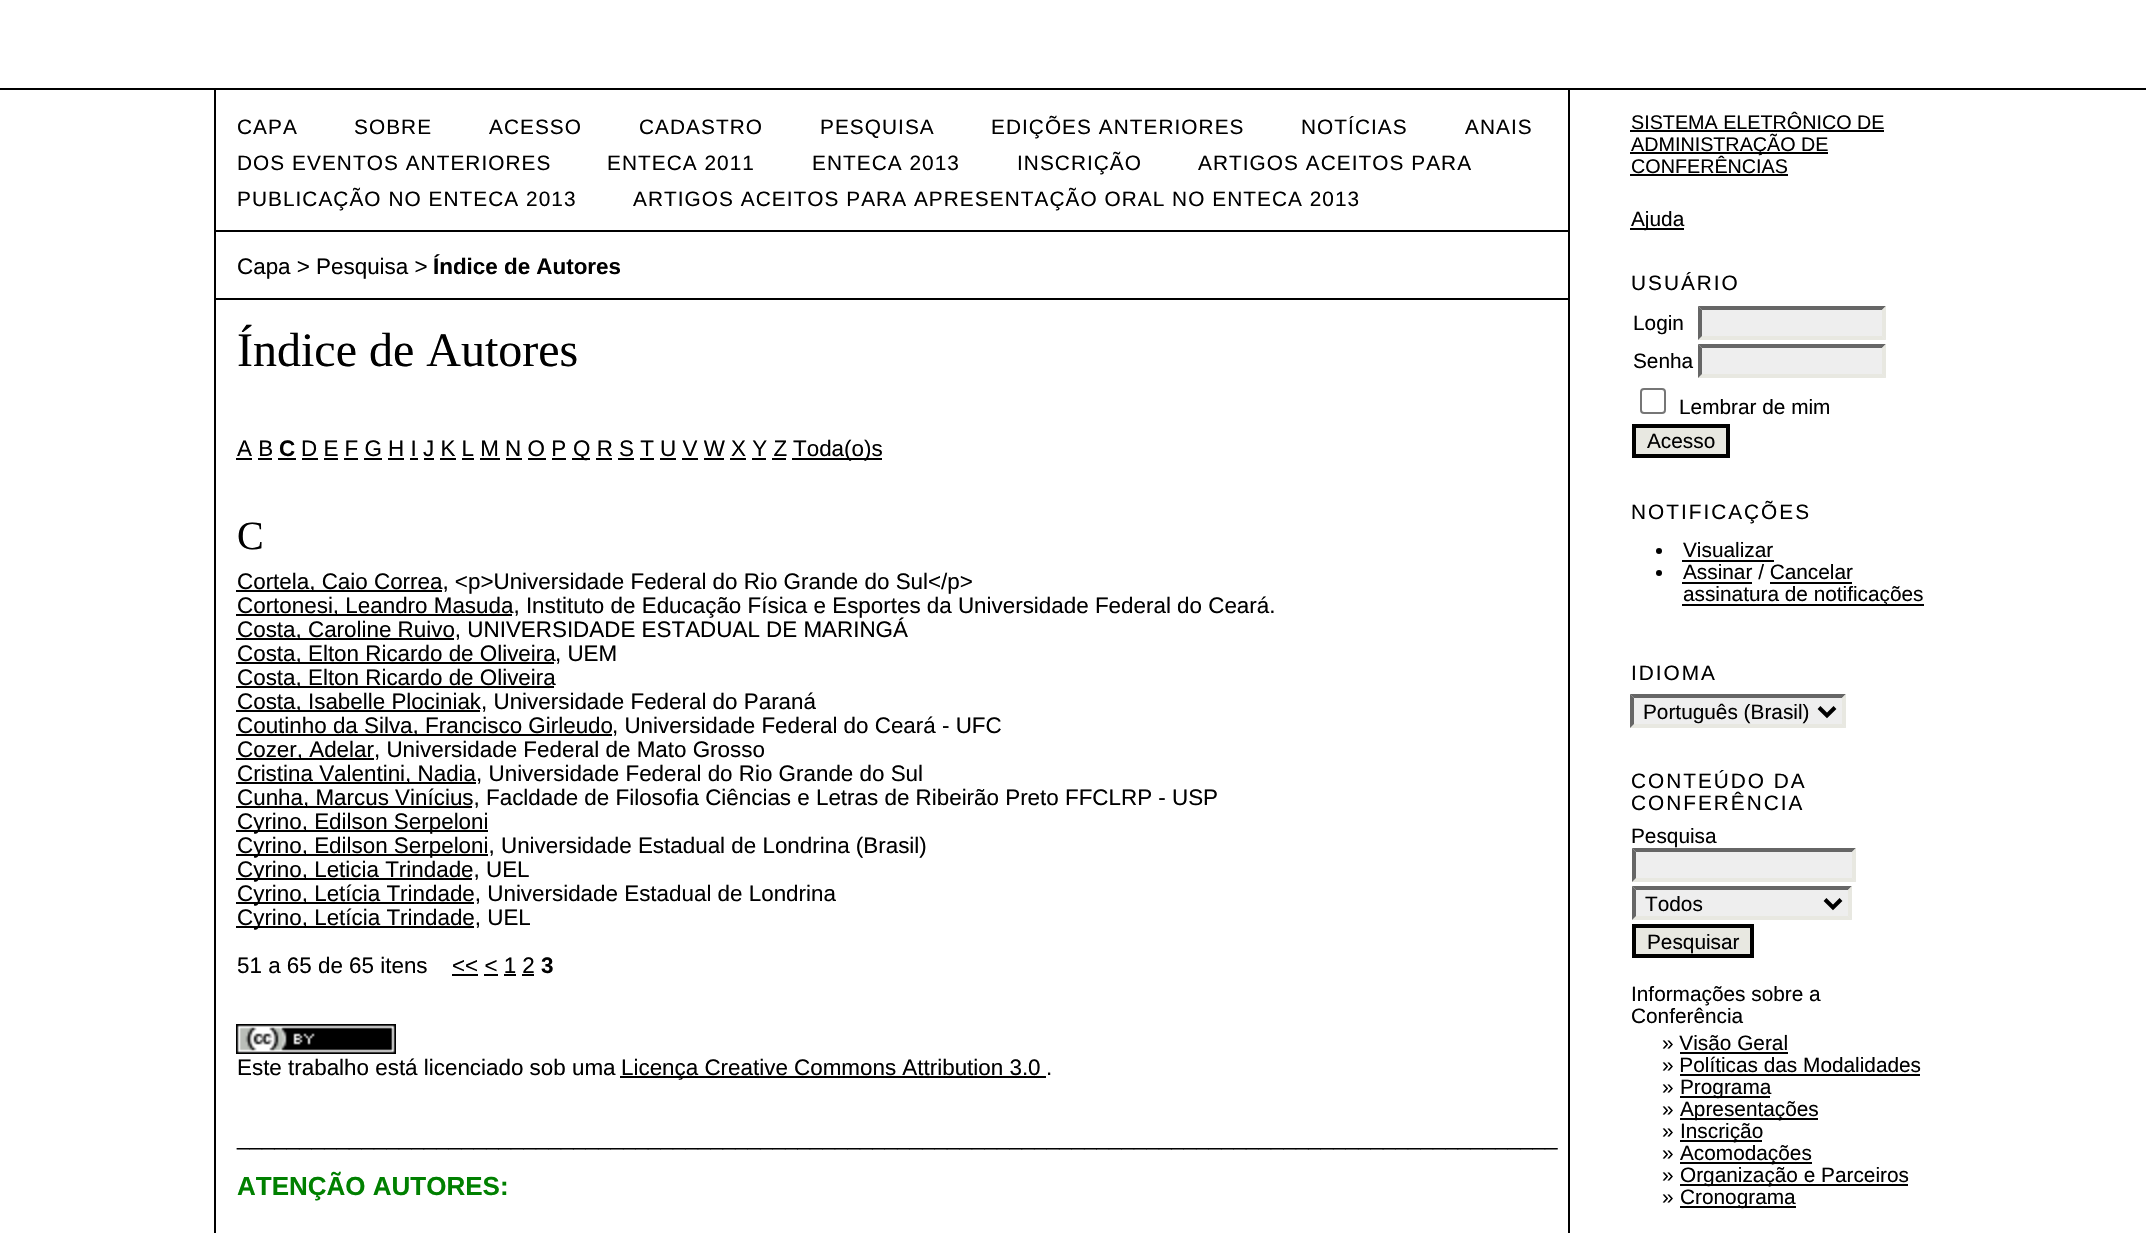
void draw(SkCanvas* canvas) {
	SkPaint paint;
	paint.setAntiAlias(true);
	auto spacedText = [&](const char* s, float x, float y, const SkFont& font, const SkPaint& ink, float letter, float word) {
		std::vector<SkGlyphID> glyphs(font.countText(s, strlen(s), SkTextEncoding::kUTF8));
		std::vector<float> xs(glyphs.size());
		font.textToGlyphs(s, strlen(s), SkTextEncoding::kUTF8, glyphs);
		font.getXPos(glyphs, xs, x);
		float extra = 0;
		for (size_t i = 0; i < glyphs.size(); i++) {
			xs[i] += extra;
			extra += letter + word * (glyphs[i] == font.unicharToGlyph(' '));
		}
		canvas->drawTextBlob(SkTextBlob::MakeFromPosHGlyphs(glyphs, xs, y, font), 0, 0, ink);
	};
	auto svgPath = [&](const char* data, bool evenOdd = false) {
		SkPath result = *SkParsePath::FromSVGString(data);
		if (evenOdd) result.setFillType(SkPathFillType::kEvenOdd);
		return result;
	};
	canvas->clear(0xffffffff);
	paint.setColor(0xff000000);
	canvas->drawRect(SkRect::MakeXYWH(0, 88, 2146, 2), paint);
	canvas->drawRect(SkRect::MakeXYWH(1568, 90, 2, 1143), paint);
	canvas->drawRect(SkRect::MakeXYWH(214, 90, 2, 1143), paint);
	canvas->drawRect(SkRect::MakeXYWH(216, 230, 1352, 2), paint);
	SkFont f1(fontMgr->matchFamilyStyle("Liberation Sans", SkFontStyle::Normal()), 20.8);
	f1.setSubpixel(true);
	spacedText("CAPA", 237, 134, f1, paint, 1.05, 0);
	spacedText("SOBRE", 354, 134, f1, paint, 1.05, 0);
	spacedText("ACESSO", 489, 134, f1, paint, 1.05, 0);
	spacedText("CADASTRO", 639, 134, f1, paint, 1.05, 0);
	spacedText("PESQUISA", 820, 134, f1, paint, 1.05, 0);
	spacedText("EDIÇÕES ANTERIORES", 991, 134, f1, paint, 1.05, 0);
	spacedText("NOTÍCIAS", 1301, 134, f1, paint, 1.05, 0);
	spacedText("ANAIS", 1465, 134, f1, paint, 1.05, 0);
	spacedText("DOS EVENTOS ANTERIORES", 237, 170, f1, paint, 1.05, 0);
	spacedText("ENTECA 2011", 607, 170, f1, paint, 1.05, 0);
	spacedText("ENTECA 2013", 812, 170, f1, paint, 1.05, 0);
	spacedText("INSCRIÇÃO", 1017, 170, f1, paint, 1.05, 0);
	spacedText("ARTIGOS ACEITOS PARA", 1198, 170, f1, paint, 1.05, 0);
	spacedText("PUBLICAÇÃO NO ENTECA 2013", 237, 206, f1, paint, 1.05, 0);
	spacedText("ARTIGOS ACEITOS PARA APRESENTAÇÃO ORAL NO ENTECA 2013", 633, 206, f1, paint, 1.05, 0);
	canvas->drawRect(SkRect::MakeXYWH(216, 298, 1352, 2), paint);
	SkFont f2(fontMgr->matchFamilyStyle("Liberation Sans", SkFontStyle::Normal()), 22.4);
	f2.setSubpixel(true);
	canvas->drawString("Capa > Pesquisa >", 237, 274, f2, paint);
	SkFont f3(fontMgr->matchFamilyStyle("Liberation Sans", SkFontStyle::Bold()), 22.4);
	f3.setSubpixel(true);
	canvas->drawString("Índice de Autores", 433, 274, f3, paint);
	SkFont f4(fontMgr->matchFamilyStyle("Liberation Serif", SkFontStyle::Normal()), 48);
	f4.setSubpixel(true);
	canvas->drawString("Índice de Autores", 237, 366, f4, paint);
	canvas->drawString("A B", 237, 456, f2, paint);
	canvas->drawRect(SkRect::MakeXYWH(236, 458, 16, 2), paint);
	canvas->drawString("C", 279, 456, f3, paint);
	canvas->drawRect(SkRect::MakeXYWH(278, 458, 18, 2), paint);
	canvas->drawString("D E F G H I J K L M N O P", 301, 456, f2, paint);
	canvas->drawRect(SkRect::MakeXYWH(302, 458, 16, 2), paint);
	canvas->drawRect(SkRect::MakeXYWH(572, 458, 18, 2), paint);
	canvas->drawString("Q R S T U V W X Y Z", 573, 456, f2, paint);
	canvas->drawRect(SkRect::MakeXYWH(792, 458, 90, 2), paint);
	canvas->drawString("Toda(o)s", 793, 456, f2, paint);
	canvas->drawRect(SkRect::MakeXYWH(258, 458, 14, 2), paint);
	canvas->drawRect(SkRect::MakeXYWH(324, 458, 14, 2), paint);
	canvas->drawRect(SkRect::MakeXYWH(344, 458, 14, 2), paint);
	canvas->drawRect(SkRect::MakeXYWH(364, 458, 18, 2), paint);
	canvas->drawRect(SkRect::MakeXYWH(388, 458, 16, 2), paint);
	canvas->drawRect(SkRect::MakeXYWH(410, 458, 8, 2), paint);
	canvas->drawRect(SkRect::MakeXYWH(424, 458, 10, 2), paint);
	canvas->drawRect(SkRect::MakeXYWH(440, 458, 16, 2), paint);
	canvas->drawRect(SkRect::MakeXYWH(462, 458, 12, 2), paint);
	canvas->drawRect(SkRect::MakeXYWH(480, 458, 20, 2), paint);
	canvas->drawRect(SkRect::MakeXYWH(506, 458, 16, 2), paint);
	canvas->drawRect(SkRect::MakeXYWH(528, 458, 18, 2), paint);
	canvas->drawRect(SkRect::MakeXYWH(552, 458, 14, 2), paint);
	canvas->drawRect(SkRect::MakeXYWH(596, 458, 16, 2), paint);
	canvas->drawRect(SkRect::MakeXYWH(618, 458, 16, 2), paint);
	canvas->drawRect(SkRect::MakeXYWH(640, 458, 14, 2), paint);
	canvas->drawRect(SkRect::MakeXYWH(660, 458, 16, 2), paint);
	canvas->drawRect(SkRect::MakeXYWH(682, 458, 16, 2), paint);
	canvas->drawRect(SkRect::MakeXYWH(704, 458, 20, 2), paint);
	canvas->drawRect(SkRect::MakeXYWH(730, 458, 16, 2), paint);
	canvas->drawRect(SkRect::MakeXYWH(752, 458, 14, 2), paint);
	canvas->drawRect(SkRect::MakeXYWH(772, 458, 14, 2), paint);
	SkFont f5(fontMgr->matchFamilyStyle("Liberation Serif", SkFontStyle::Normal()), 40);
	f5.setSubpixel(true);
	canvas->drawString("C", 237, 549, f5, paint);
	canvas->drawRect(SkRect::MakeXYWH(236, 590, 206, 2), paint);
	canvas->drawString("Cortela, Caio Correa, <p>Universidade Federal do Rio Grande do Sul</p>", 237, 589, f2, paint);
	canvas->drawRect(SkRect::MakeXYWH(236, 614, 276, 2), paint);
	canvas->drawString("Cortonesi, Leandro Masuda, Instituto de Educação Física e Esportes da Universidade Federal do Ceará.", 237, 613, f2, paint);
	canvas->drawRect(SkRect::MakeXYWH(236, 638, 218, 2), paint);
	canvas->drawString("Costa, Caroline Ruivo, UNIVERSIDADE ESTADUAL DE MARINGÁ", 237, 637, f2, paint);
	canvas->drawRect(SkRect::MakeXYWH(236, 662, 318, 2), paint);
	canvas->drawString("Costa, Elton Ricardo de Oliveira", 237, 661, f2, paint);
	canvas->drawString(", UEM", 555, 661, f2, paint);
	canvas->drawRect(SkRect::MakeXYWH(236, 686, 318, 2), paint);
	canvas->drawString("Costa, Elton Ricardo de Oliveira", 237, 685, f2, paint);
	canvas->drawRect(SkRect::MakeXYWH(236, 710, 244, 2), paint);
	canvas->drawString("Costa, Isabelle Plociniak, Universidade Federal do Paraná", 237, 709, f2, paint);
	canvas->drawRect(SkRect::MakeXYWH(236, 734, 376, 2), paint);
	canvas->drawString("Coutinho da Silva, Francisco Girleudo", 237, 733, f2, paint);
	canvas->drawString(", Universidade Federal do Ceará - UFC", 612, 733, f2, paint);
	canvas->drawRect(SkRect::MakeXYWH(236, 758, 138, 2), paint);
	canvas->drawString("Cozer, Adelar, Universidade Federal de Mato Grosso", 237, 757, f2, paint);
	canvas->drawRect(SkRect::MakeXYWH(236, 782, 240, 2), paint);
	canvas->drawString("Cristina Valentini, Nadia, Universidade Federal do Rio Grande do Sul", 237, 781, f2, paint);
	canvas->drawRect(SkRect::MakeXYWH(236, 806, 236, 2), paint);
	canvas->drawString("Cunha, Marcus Vinícius, Facldade de Filosofia Ciências e Letras de Ribeirão Preto FFCLRP - USP", 237, 805, f2, paint);
	canvas->drawRect(SkRect::MakeXYWH(236, 830, 252, 2), paint);
	canvas->drawString("Cyrino, Edilson Serpeloni", 237, 829, f2, paint);
	canvas->drawRect(SkRect::MakeXYWH(236, 854, 252, 2), paint);
	canvas->drawString("Cyrino, Edilson Serpeloni, Universidade Estadual de Londrina (Brasil)", 237, 853, f2, paint);
	canvas->drawRect(SkRect::MakeXYWH(236, 878, 236, 2), paint);
	canvas->drawString("Cyrino, Leticia Trindade, UEL", 237, 877, f2, paint);
	canvas->drawRect(SkRect::MakeXYWH(236, 902, 238, 2), paint);
	canvas->drawString("Cyrino, Letícia Trindade, Universidade Estadual de Londrina", 237, 901, f2, paint);
	canvas->drawRect(SkRect::MakeXYWH(236, 926, 238, 2), paint);
	canvas->drawString("Cyrino, Letícia Trindade, UEL", 237, 925, f2, paint);
	canvas->drawString("51 a 65 de 65 itens", 237, 973, f2, paint);
	canvas->drawString("<< < 1 2", 452, 973, f2, paint);
	canvas->drawRect(SkRect::MakeXYWH(452, 974, 26, 2), paint);
	canvas->drawString("3", 541, 973, f3, paint);
	canvas->drawRect(SkRect::MakeXYWH(484, 974, 14, 2), paint);
	canvas->drawRect(SkRect::MakeXYWH(504, 974, 12, 2), paint);
	canvas->drawRect(SkRect::MakeXYWH(522, 974, 12, 2), paint);
	canvas->drawImageRect(SkImages::DeferredFromEncodedData(SkData::MakeFromFileName("img1.png")), SkRect::MakeXYWH(236, 1024, 160, 30), SkSamplingOptions());
	canvas->drawString("Este trabalho está licenciado sob uma", 237, 1075, f2, paint);
	canvas->drawRect(SkRect::MakeXYWH(620, 1076, 426, 2), paint);
	canvas->drawString("Licença Creative Commons Attribution 3.0", 621, 1075, f2, paint);
	canvas->drawString(".", 1046, 1075, f2, paint);
	canvas->drawString("__________________________________________________________________________________________________________", 237, 1145, f2, paint);
	SkFont f6(fontMgr->matchFamilyStyle("Liberation Sans", SkFontStyle::Bold()), 26);
	f6.setSubpixel(true);
	paint.setColor(0xff008000);
	canvas->drawString("ATENÇÃO AUTORES:", 237, 1195, f6, paint);
	SkFont f7(fontMgr->matchFamilyStyle("Liberation Sans", SkFontStyle::Normal()), 19.75);
	f7.setSubpixel(true);
	paint.setColor(0xff000000);
	canvas->drawString("SISTEMA ELETRÔNICO DE", 1631, 129, f7, paint);
	canvas->drawRect(SkRect::MakeXYWH(1630, 130, 254, 2), paint);
	canvas->drawRect(SkRect::MakeXYWH(1630, 152, 198, 2), paint);
	canvas->drawString("ADMINISTRAÇÃO DE", 1631, 151, f7, paint);
	canvas->drawString("CONFERÊNCIAS", 1631, 173, f7, paint);
	canvas->drawRect(SkRect::MakeXYWH(1630, 174, 158, 2), paint);
	canvas->drawRect(SkRect::MakeXYWH(1630, 228, 54, 2), paint);
	canvas->drawString("Ajuda", 1631, 226, f1, paint);
	spacedText("USUÁRIO", 1631, 290, f1, paint, 2, 0);
	canvas->drawString("Login", 1633, 330, f1, paint);
	paint.setColor(0xffeeeeee);
	canvas->drawRect(SkRect::MakeXYWH(1698, 306, 188, 34), paint);
	paint.setColor(0xff666666);
	canvas->drawPath(svgPath("M1698 306H1886L1882 310H1702Z"), paint);
	paint.setColor(0xffe8e8e1);
	canvas->drawPath(svgPath("M1886 306V340L1882 336V310Z"), paint);
	canvas->drawPath(svgPath("M1886 340H1698L1702 336H1882Z"), paint);
	paint.setColor(0xff666666);
	canvas->drawPath(svgPath("M1698 340V306L1702 310V336Z"), paint);
	paint.setColor(0xff000000);
	canvas->drawString("Senha", 1633, 368, f1, paint);
	paint.setColor(0xffeeeeee);
	canvas->drawRect(SkRect::MakeXYWH(1698, 344, 188, 34), paint);
	paint.setColor(0xff666666);
	canvas->drawPath(svgPath("M1698 344H1886L1882 348H1702Z"), paint);
	paint.setColor(0xffe8e8e1);
	canvas->drawPath(svgPath("M1886 344V378L1882 374V348Z"), paint);
	canvas->drawPath(svgPath("M1886 378H1698L1702 374H1882Z"), paint);
	paint.setColor(0xff666666);
	canvas->drawPath(svgPath("M1698 378V344L1702 348V374Z"), paint);
	paint.setStroke(true);
	paint.setStrokeWidth(2);
	paint.setColor(0xff767676);
	canvas->drawRoundRect(SkRect::MakeXYWH(1641, 389, 24, 24), 3, 3, paint);
	paint.setStroke(false);
	paint.setColor(0xff000000);
	canvas->drawString("Lembrar de mim", 1679, 414, f1, paint);
	paint.setColor(0xffe8e8e1);
	canvas->drawRect(SkRect::MakeXYWH(1634, 426, 94, 30), paint);
	paint.setStroke(true);
	paint.setStrokeWidth(4);
	paint.setColor(0xff000000);
	canvas->drawRect(SkRect::MakeXYWH(1634, 426, 94, 30), paint);
	paint.setStroke(false);
	canvas->drawString("Acesso", 1647, 448, f1, paint);
	spacedText("NOTIFICAÇÕES", 1631, 519, f1, paint, 2, 0);
	canvas->drawCircle(1659, 551, 3, paint);
	canvas->drawString("Visualizar", 1683, 557, f1, paint);
	canvas->drawRect(SkRect::MakeXYWH(1682, 560, 92, 2), paint);
	canvas->drawCircle(1659, 573, 3, paint);
	canvas->drawString("Assinar / Cancelar", 1683, 579, f1, paint);
	canvas->drawRect(SkRect::MakeXYWH(1682, 582, 70, 2), paint);
	canvas->drawRect(SkRect::MakeXYWH(1682, 604, 242, 2), paint);
	canvas->drawString("assinatura de notificações", 1683, 601, f1, paint);
	canvas->drawRect(SkRect::MakeXYWH(1770, 582, 82, 2), paint);
	spacedText("IDIOMA", 1631, 680, f1, paint, 2, 0);
	paint.setColor(0xffeeeeee);
	canvas->drawRect(SkRect::MakeXYWH(1630, 694, 216, 34), paint);
	paint.setColor(0xff666666);
	canvas->drawPath(svgPath("M1630 694H1846L1842 698H1634Z"), paint);
	paint.setColor(0xffe8e8e1);
	canvas->drawPath(svgPath("M1846 694V728L1842 724V698Z"), paint);
	canvas->drawPath(svgPath("M1846 728H1630L1634 724H1842Z"), paint);
	paint.setColor(0xff666666);
	canvas->drawPath(svgPath("M1630 728V694L1634 698V724Z"), paint);
	paint.setStroke(true);
	paint.setColor(0xff000000);
	canvas->drawPath(svgPath("M1819 707.5L1827 715.5L1835 707.5"), paint);
	paint.setStroke(false);
	canvas->drawString("Português (Brasil)", 1643, 719, f1, paint);
	spacedText("CONTEÚDO DA", 1631, 788, f1, paint, 2, 0);
	spacedText("CONFERÊNCIA", 1631, 810, f1, paint, 2, 0);
	canvas->drawString("Pesquisa", 1631, 843, f1, paint);
	paint.setColor(0xffeeeeee);
	canvas->drawRect(SkRect::MakeXYWH(1632, 848, 224, 34), paint);
	paint.setColor(0xff666666);
	canvas->drawPath(svgPath("M1632 848H1856L1852 852H1636Z"), paint);
	paint.setColor(0xffe8e8e1);
	canvas->drawPath(svgPath("M1856 848V882L1852 878V852Z"), paint);
	canvas->drawPath(svgPath("M1856 882H1632L1636 878H1852Z"), paint);
	paint.setColor(0xff666666);
	canvas->drawPath(svgPath("M1632 882V848L1636 852V878Z"), paint);
	paint.setColor(0xffeeeeee);
	canvas->drawRect(SkRect::MakeXYWH(1632, 886, 220, 34), paint);
	paint.setColor(0xff666666);
	canvas->drawPath(svgPath("M1632 886H1852L1848 890H1636Z"), paint);
	paint.setColor(0xffe8e8e1);
	canvas->drawPath(svgPath("M1852 886V920L1848 916V890Z"), paint);
	canvas->drawPath(svgPath("M1852 920H1632L1636 916H1848Z"), paint);
	paint.setColor(0xff666666);
	canvas->drawPath(svgPath("M1632 920V886L1636 890V916Z"), paint);
	paint.setStroke(true);
	paint.setColor(0xff000000);
	canvas->drawPath(svgPath("M1825 899.5L1833 907.5L1841 899.5"), paint);
	paint.setStroke(false);
	canvas->drawString("Todos", 1645, 911, f1, paint);
	paint.setColor(0xffe8e8e1);
	canvas->drawRect(SkRect::MakeXYWH(1634, 926, 118, 30), paint);
	paint.setStroke(true);
	paint.setColor(0xff000000);
	canvas->drawRect(SkRect::MakeXYWH(1634, 926, 118, 30), paint);
	paint.setStroke(false);
	canvas->drawString("Pesquisar", 1647, 949, f1, paint);
	canvas->drawString("Informações sobre a", 1631, 1001, f1, paint);
	canvas->drawString("Conferência", 1631, 1023, f1, paint);
	canvas->drawString("» Visão Geral", 1662, 1050, f1, paint);
	canvas->drawRect(SkRect::MakeXYWH(1680, 1052, 108, 2), paint);
	canvas->drawString("» Políticas das Modalidades", 1662, 1072, f1, paint);
	canvas->drawRect(SkRect::MakeXYWH(1680, 1074, 240, 2), paint);
	canvas->drawString("»", 1662, 1094, f1, paint);
	canvas->drawRect(SkRect::MakeXYWH(1680, 1096, 90, 2), paint);
	canvas->drawString("Programa", 1680, 1094, f1, paint);
	canvas->drawString("»", 1662, 1116, f1, paint);
	canvas->drawRect(SkRect::MakeXYWH(1680, 1118, 138, 2), paint);
	canvas->drawString("Apresentações", 1680, 1116, f1, paint);
	canvas->drawString("»", 1662, 1138, f1, paint);
	canvas->drawRect(SkRect::MakeXYWH(1680, 1140, 82, 2), paint);
	canvas->drawString("Inscrição", 1680, 1138, f1, paint);
	canvas->drawString("»", 1662, 1160, f1, paint);
	canvas->drawRect(SkRect::MakeXYWH(1680, 1162, 132, 2), paint);
	canvas->drawString("Acomodações", 1680, 1160, f1, paint);
	canvas->drawString("»", 1662, 1182, f1, paint);
	canvas->drawRect(SkRect::MakeXYWH(1680, 1184, 228, 2), paint);
	canvas->drawString("Organização e Parceiros", 1680, 1182, f1, paint);
	canvas->drawString("»", 1662, 1204, f1, paint);
	canvas->drawRect(SkRect::MakeXYWH(1680, 1206, 116, 2), paint);
	canvas->drawString("Cronograma", 1680, 1204, f1, paint);
}
